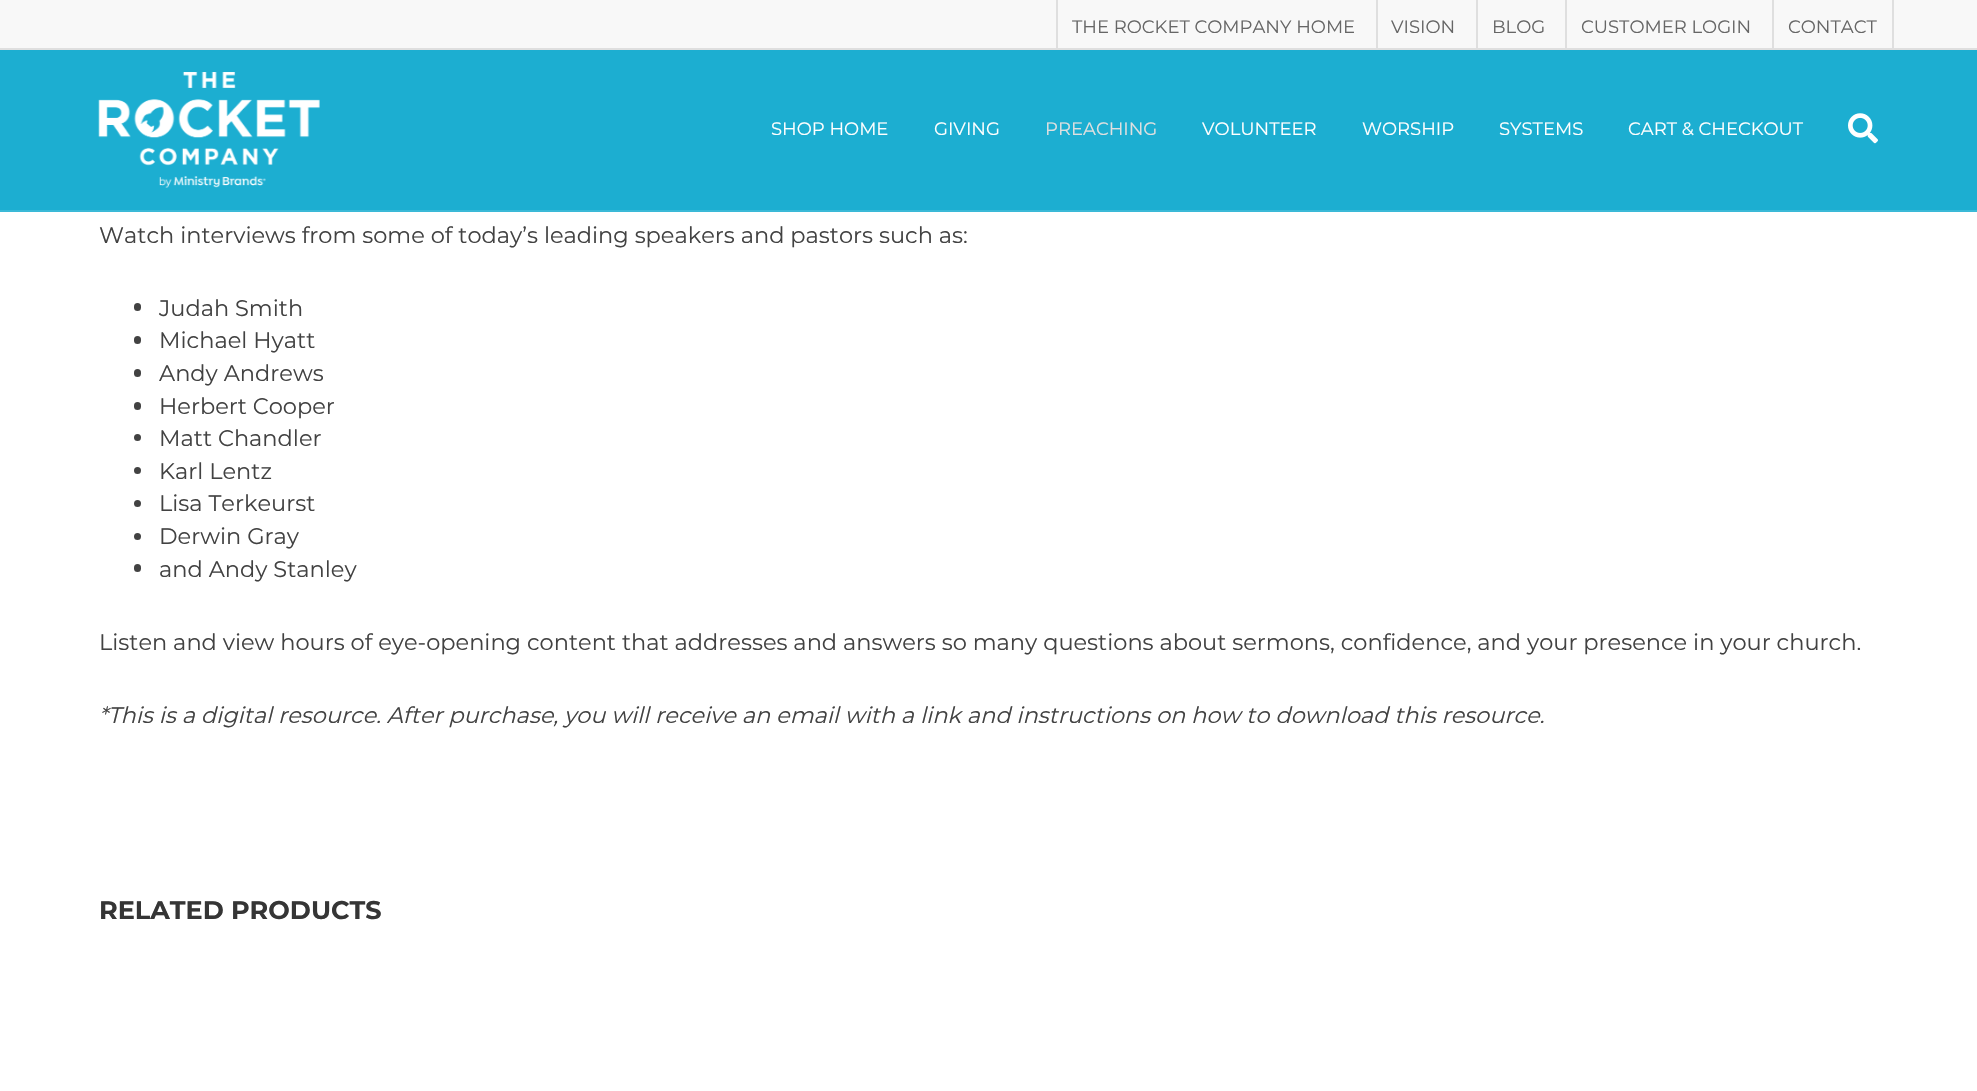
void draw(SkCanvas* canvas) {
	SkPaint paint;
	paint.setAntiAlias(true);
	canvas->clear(0xffffffff);
	paint.setColor(0xfff8f8f8);
	canvas->drawRect(SkRect::MakeXYWH(0, 0, 1977, 48), paint);
	paint.setColor(0xffdfdfdf);
	canvas->drawRect(SkRect::MakeXYWH(0, 48, 1977, 2), paint);
	canvas->drawRect(SkRect::MakeXYWH(1892, 0, 2, 48), paint);
	canvas->drawRect(SkRect::MakeXYWH(1056, 0, 2, 48), paint);
	SkFont f1(fontMgr->matchFamilyStyle("Montserrat", SkFontStyle::Normal()), 18);
	f1.setSubpixel(true);
	paint.setColor(0xff666666);
	canvas->drawString("THE ROCKET COMPANY HOME", 1072, 33, f1, paint);
	paint.setColor(0xffdfdfdf);
	canvas->drawRect(SkRect::MakeXYWH(1376, 0, 2, 48), paint);
	paint.setColor(0xff666666);
	canvas->drawString("VISION", 1391, 33, f1, paint);
	paint.setColor(0xffdfdfdf);
	canvas->drawRect(SkRect::MakeXYWH(1476, 0, 2, 48), paint);
	paint.setColor(0xff666666);
	canvas->drawString("BLOG", 1492, 33, f1, paint);
	paint.setColor(0xffdfdfdf);
	canvas->drawRect(SkRect::MakeXYWH(1565, 0, 2, 48), paint);
	paint.setColor(0xff666666);
	canvas->drawString("CUSTOMER LOGIN", 1581, 33, f1, paint);
	paint.setColor(0xffdfdfdf);
	canvas->drawRect(SkRect::MakeXYWH(1772, 0, 2, 48), paint);
	paint.setColor(0xff666666);
	canvas->drawString("CONTACT", 1788, 33, f1, paint);
	paint.setColor(0xff1caed1);
	canvas->drawRect(SkRect::MakeXYWH(0, 50, 1977, 160), paint);
	paint.setColor(0xff3ab9d7);
	canvas->drawRect(SkRect::MakeXYWH(0, 210, 1977, 2), paint);
	canvas->drawImageRect(SkImages::DeferredFromEncodedData(SkData::MakeFromFileName("img1.png")), SkRect::MakeXYWH(98, 72, 222, 116), SkSamplingOptions());
	paint.setColor(0xffffffff);
	canvas->drawString("SHOP HOME", 771, 135, f1, paint);
	canvas->drawString("GIVING", 934, 135, f1, paint);
	paint.setColor(0xffe0e0e0);
	canvas->drawString("PREACHING", 1045, 135, f1, paint);
	paint.setColor(0xffffffff);
	canvas->drawString("VOLUNTEER", 1202, 135, f1, paint);
	canvas->drawString("WORSHIP", 1362, 135, f1, paint);
	canvas->drawString("SYSTEMS", 1499, 135, f1, paint);
	canvas->drawString("CART & CHECKOUT", 1628, 135, f1, paint);
	canvas->drawImageRect(SkImages::DeferredFromEncodedData(SkData::MakeFromFileName("img2.png")), SkRect::MakeXYWH(1848, 113, 30, 31), SkSamplingOptions());
	SkFont f2(fontMgr->matchFamilyStyle("Montserrat", SkFontStyle::Normal()), 22.5);
	f2.setSubpixel(true);
	paint.setColor(0xff424242);
	canvas->drawString("Watch interviews from some of today’s leading speakers and pastors such as:", 99, 243, f2, paint);
	canvas->drawRoundRect(SkRect::MakeXYWH(134, 303, 7, 8), 3.5, 3.5, paint);
	canvas->drawString("Judah Smith", 159, 316, f2, paint);
	canvas->drawRoundRect(SkRect::MakeXYWH(134, 336, 7, 8), 3.5, 3.5, paint);
	canvas->drawString("Michael Hyatt", 159, 348, f2, paint);
	canvas->drawRoundRect(SkRect::MakeXYWH(134, 369, 7, 8), 3.5, 3.5, paint);
	canvas->drawString("Andy Andrews", 159, 381, f2, paint);
	canvas->drawRoundRect(SkRect::MakeXYWH(134, 402, 7, 8), 3.5, 3.5, paint);
	canvas->drawString("Herbert Cooper", 159, 414, f2, paint);
	canvas->drawCircle(137.5, 437.5, 3.5, paint);
	canvas->drawString("Matt Chandler", 159, 446, f2, paint);
	canvas->drawCircle(137.5, 470.5, 3.5, paint);
	canvas->drawString("Karl Lentz", 159, 479, f2, paint);
	canvas->drawCircle(137.5, 503.5, 3.5, paint);
	canvas->drawString("Lisa Terkeurst", 159, 511, f2, paint);
	canvas->drawCircle(137.5, 536.5, 3.5, paint);
	canvas->drawString("Derwin Gray", 159, 544, f2, paint);
	canvas->drawRoundRect(SkRect::MakeXYWH(134, 564, 7, 8), 3.5, 3.5, paint);
	canvas->drawString("and Andy Stanley", 159, 577, f2, paint);
	canvas->drawString("Listen and view hours of eye-opening content that addresses and answers so many questions about sermons, confidence, and your presence in your church.", 99, 650, f2, paint);
	SkFont f3(fontMgr->matchFamilyStyle("Montserrat", SkFontStyle::Italic()), 22.5);
	f3.setSubpixel(true);
	canvas->drawString("*This is a digital resource. After purchase, you will receive an email with a link and instructions on how to download this resource.", 99, 723, f3, paint);
	SkFont f4(fontMgr->matchFamilyStyle("Montserrat", SkFontStyle::Bold()), 25.5);
	f4.setSubpixel(true);
	paint.setColor(0xff353535);
	canvas->drawString("RELATED PRODUCTS", 99, 919, f4, paint);
}
